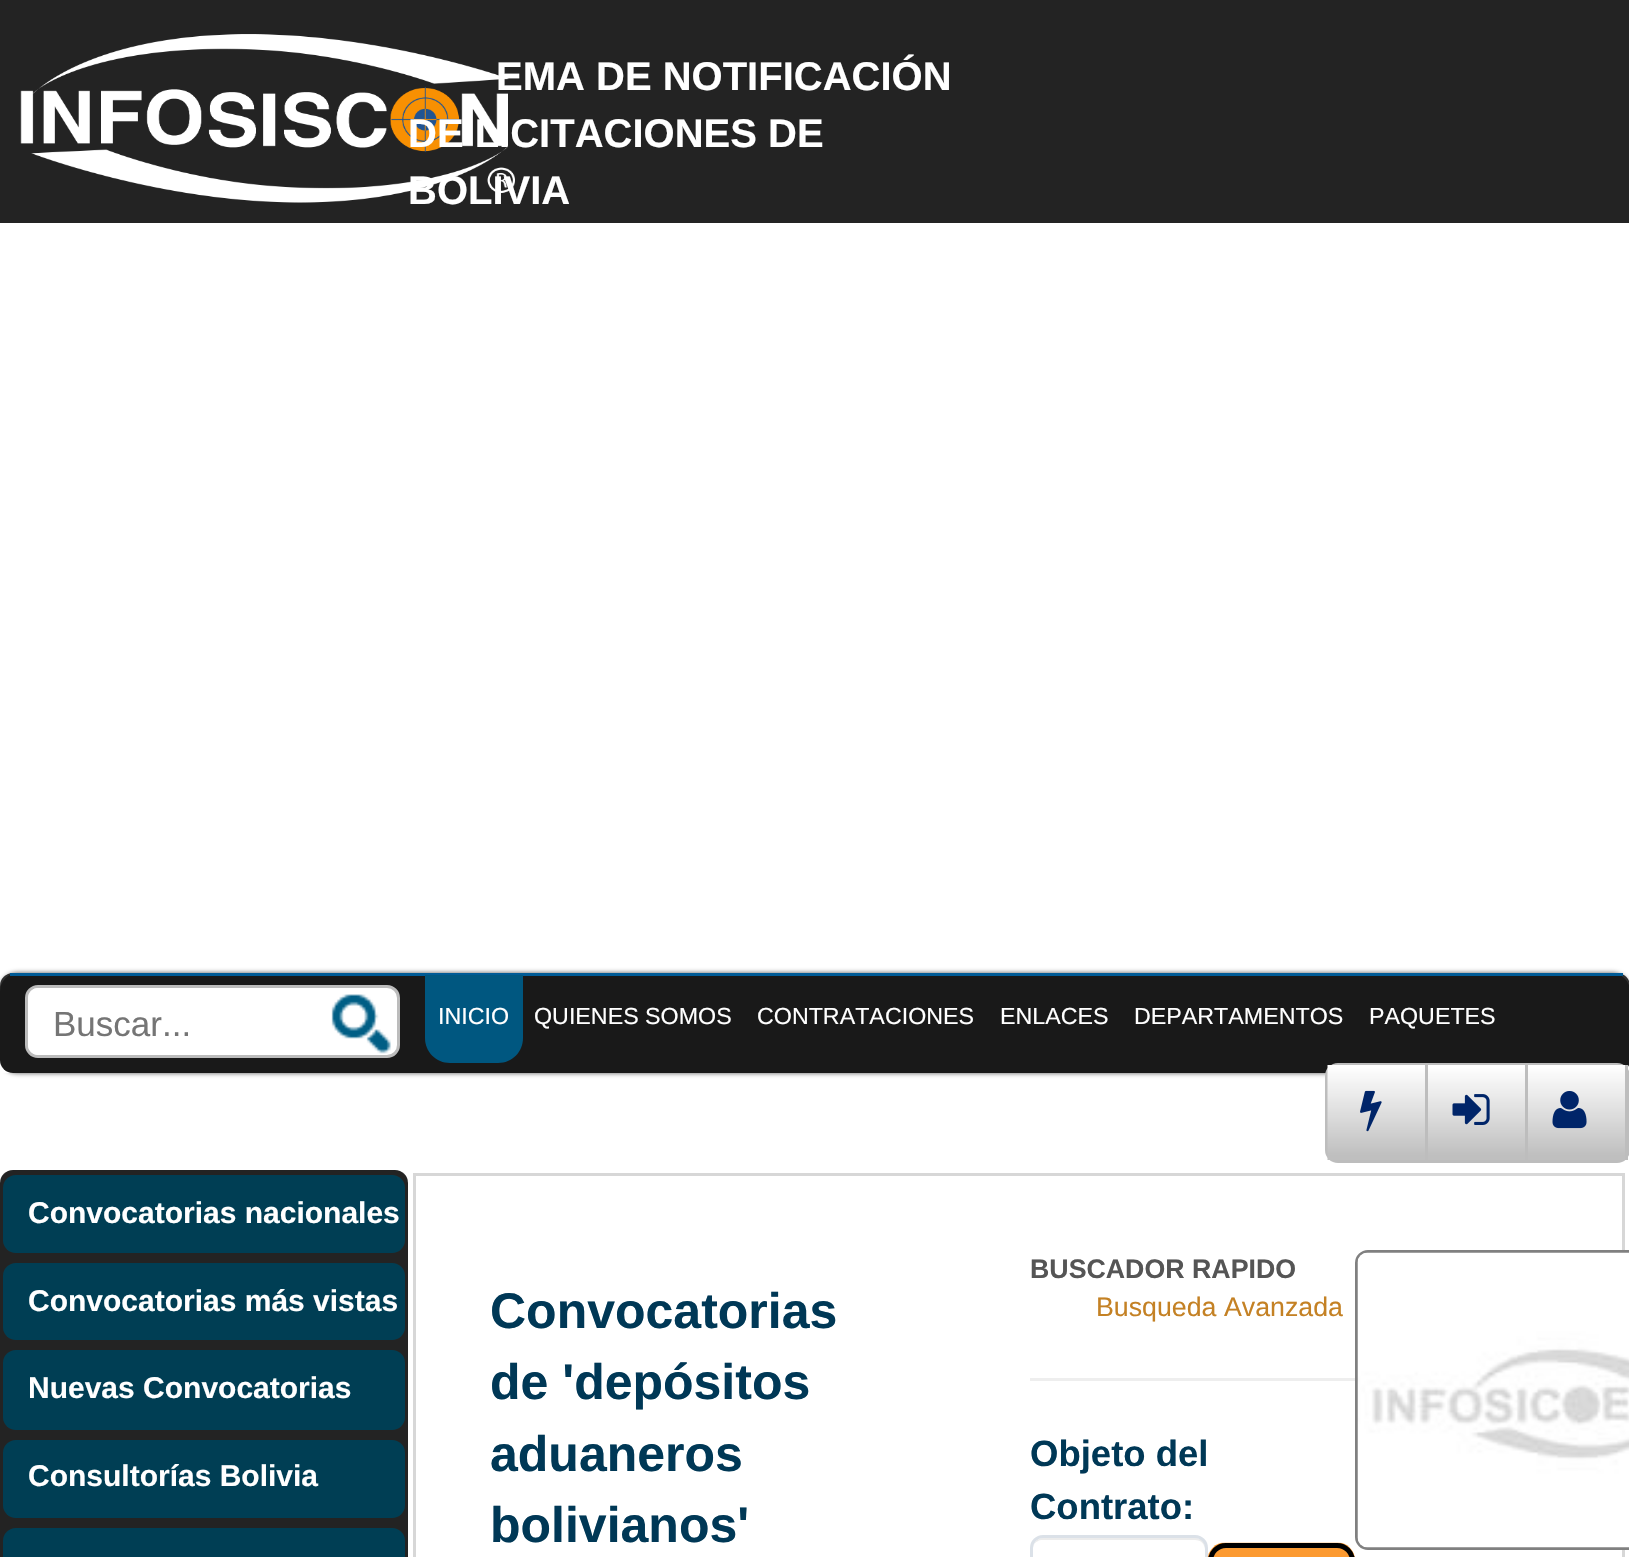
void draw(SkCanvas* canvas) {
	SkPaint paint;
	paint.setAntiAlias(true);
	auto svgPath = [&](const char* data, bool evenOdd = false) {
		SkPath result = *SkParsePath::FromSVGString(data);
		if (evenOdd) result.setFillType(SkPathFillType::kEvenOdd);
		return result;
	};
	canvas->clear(0xffffffff);
	paint.setColor(0xff232323);
	canvas->drawRect(SkRect::MakeXYWH(0, 0, 1629, 223), paint);
	canvas->drawImageRect(SkImages::DeferredFromEncodedData(SkData::MakeFromFileName("img1.png")), SkRect::MakeXYWH(20, 34, 495, 169), SkSamplingOptions());
	SkFont f1(fontMgr->matchFamilyStyle("Liberation Sans", SkFontStyle::Bold()), 40);
	f1.setSubpixel(true);
	paint.setColor(0xffffffff);
	canvas->drawString("EMA DE NOTIFICACIÓN", 496, 90, f1, paint);
	canvas->drawString("DE LICITACIONES DE", 408, 147, f1, paint);
	canvas->drawString("BOLIVIA", 408, 204, f1, paint);
	paint.setColor(0xff191919);
	canvas->drawRoundRect(SkRect::MakeXYWH(0, 973, 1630, 100), 13, 13, paint);
	canvas->save();
	canvas->clipPath(svgPath("M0 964H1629V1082H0ZM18 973H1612C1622 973 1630 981 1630 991V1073H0V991C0 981 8 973 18 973Z", true), true);
	paint.setColor(0xff555555);
	paint.setMaskFilter(SkMaskFilter::MakeBlur(kNormal_SkBlurStyle, 2.5));
	canvas->drawRoundRect(SkRect::MakeXYWH(0, 973, 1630, 100), 18, 18, paint);
	paint.setMaskFilter(nullptr);
	canvas->restore();
	paint.setColor(0xff005b96);
	canvas->drawRect(SkRect::MakeXYWH(10, 973, 1613, 3), paint);
	paint.setColor(0xffffffff);
	canvas->drawRoundRect(SkRect::MakeXYWH(26.5, 986.5, 372, 70), 11.5, 11.5, paint);
	paint.setStroke(true);
	paint.setStrokeWidth(3);
	paint.setColor(0xffbcbcbc);
	canvas->drawRoundRect(SkRect::MakeXYWH(26.5, 986.5, 372, 70), 11.5, 11.5, paint);
	paint.setStroke(false);
	paint.setColor(0xffffffff);
	canvas->drawPath(svgPath("M38 988H303V1055H38C32.5 1055 28 1050.5 28 1045V998C28 992.5 32.5 988 38 988Z"), paint);
	SkFont f2(fontMgr->matchFamilyStyle("Liberation Sans", SkFontStyle::Normal()), 35);
	f2.setSubpixel(true);
	paint.setColor(0xff757575);
	canvas->drawString("Buscar...", 53, 1036, f2, paint);
	canvas->drawImageRect(SkImages::DeferredFromEncodedData(SkData::MakeFromFileName("img2.png")), SkRect::MakeXYWH(331, 994, 60, 60), SkSamplingOptions());
	paint.setColor(0xff005780);
	canvas->drawPath(svgPath("M425 975H523V1038C523 1052 512 1063 498 1063H450C436 1063 425 1052 425 1038Z"), paint);
	SkFont f3(fontMgr->matchFamilyStyle("Liberation Sans", SkFontStyle::Normal()), 23.25);
	f3.setSubpixel(true);
	paint.setColor(0xffffffff);
	canvas->drawString("INICIO", 438, 1024, f3, paint);
	canvas->drawString("QUIENES SOMOS", 534, 1024, f3, paint);
	canvas->drawString("CONTRATACIONES", 757, 1024, f3, paint);
	canvas->drawString("ENLACES", 1000, 1024, f3, paint);
	canvas->drawString("DEPARTAMENTOS", 1134, 1024, f3, paint);
	canvas->drawString("PAQUETES", 1369, 1024, f3, paint);
	paint.setStroke(true);
	paint.setColor(0xffbdbdbd);
	canvas->drawRoundRect(SkRect::MakeXYWH(1326.5, 1064.5, 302, 97), 11.5, 11.5, paint);
	canvas->drawImageRect(SkImages::DeferredFromEncodedData(SkData::MakeFromFileName("img3.png")), SkRect::MakeXYWH(1327, 1065, 98, 95), SkSamplingOptions());
	paint.setStroke(false);
	canvas->drawRect(SkRect::MakeXYWH(1425, 1065, 3, 95), paint);
	canvas->drawImageRect(SkImages::DeferredFromEncodedData(SkData::MakeFromFileName("img4.png")), SkRect::MakeXYWH(1360, 1090, 22, 42), SkSamplingOptions());
	canvas->drawImageRect(SkImages::DeferredFromEncodedData(SkData::MakeFromFileName("img5.png")), SkRect::MakeXYWH(1428, 1065, 97, 95), SkSamplingOptions());
	canvas->drawRect(SkRect::MakeXYWH(1525, 1065, 3, 95), paint);
	canvas->drawImageRect(SkImages::DeferredFromEncodedData(SkData::MakeFromFileName("img6.png")), SkRect::MakeXYWH(1452, 1094, 38, 31), SkSamplingOptions());
	canvas->drawImageRect(SkImages::DeferredFromEncodedData(SkData::MakeFromFileName("img5.png")), SkRect::MakeXYWH(1528, 1065, 97, 95), SkSamplingOptions());
	canvas->drawRect(SkRect::MakeXYWH(1625, 1065, 3, 95), paint);
	canvas->drawImageRect(SkImages::DeferredFromEncodedData(SkData::MakeFromFileName("img7.png")), SkRect::MakeXYWH(1552, 1091, 35, 38), SkSamplingOptions());
	paint.setColor(0xff232323);
	canvas->drawRoundRect(SkRect::MakeXYWH(0, 1170, 408, 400), 13, 13, paint);
	paint.setColor(0xff003e54);
	canvas->drawRoundRect(SkRect::MakeXYWH(3, 1175, 402, 78), 13, 13, paint);
	SkFont f4(fontMgr->matchFamilyStyle("Liberation Sans", SkFontStyle::Bold()), 30);
	f4.setSubpixel(true);
	paint.setColor(0xffffffff);
	canvas->drawString("Convocatorias nacionales", 28, 1223, f4, paint);
	paint.setColor(0xff003e54);
	canvas->drawRoundRect(SkRect::MakeXYWH(3, 1263, 402, 77), 13, 13, paint);
	paint.setColor(0xffffffff);
	canvas->drawString("Convocatorias más vistas", 28, 1311, f4, paint);
	paint.setColor(0xff003e54);
	canvas->drawRoundRect(SkRect::MakeXYWH(3, 1350, 402, 80), 13, 13, paint);
	paint.setColor(0xffffffff);
	canvas->drawString("Nuevas Convocatorias", 28, 1398, f4, paint);
	paint.setColor(0xff003e54);
	canvas->drawRoundRect(SkRect::MakeXYWH(3, 1440, 402, 78), 13, 13, paint);
	paint.setColor(0xffffffff);
	canvas->drawString("Consultorías Bolivia", 28, 1486, f4, paint);
	paint.setColor(0xff003e54);
	canvas->drawRoundRect(SkRect::MakeXYWH(3, 1528, 402, 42), 13, 13, paint);
	paint.setStroke(true);
	paint.setColor(0xffd7d7d7);
	canvas->drawRect(SkRect::MakeXYWH(414.5, 1174.5, 1209, 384), paint);
	SkFont f5(fontMgr->matchFamilyStyle("Liberation Sans", SkFontStyle::Bold()), 50);
	f5.setSubpixel(true);
	paint.setStroke(false);
	paint.setColor(0xff003856);
	canvas->drawString("Convocatorias", 490, 1328, f5, paint);
	canvas->drawString("de 'depósitos", 490, 1399, f5, paint);
	canvas->drawString("aduaneros", 490, 1471, f5, paint);
	canvas->drawString("bolivianos'", 490, 1542, f5, paint);
	SkFont f6(fontMgr->matchFamilyStyle("Liberation Sans", SkFontStyle::Bold()), 26.75);
	f6.setSubpixel(true);
	paint.setColor(0xff555555);
	canvas->drawString("BUSCADOR RAPIDO", 1030, 1278, f6, paint);
	SkFont f7(fontMgr->matchFamilyStyle("Liberation Sans", SkFontStyle::Normal()), 26.75);
	f7.setSubpixel(true);
	paint.setColor(0xffc48124);
	canvas->drawString("Busqueda Avanzada", 1096, 1316, f7, paint);
	paint.setColor(0xffeeeeee);
	canvas->drawRect(SkRect::MakeXYWH(1030, 1378, 325, 3), paint);
	SkFont f8(fontMgr->matchFamilyStyle("Liberation Sans", SkFontStyle::Bold()), 36.5);
	f8.setSubpixel(true);
	paint.setColor(0xff003856);
	canvas->drawString("Objeto del", 1030, 1466, f8, paint);
	canvas->drawString("Contrato:", 1030, 1519, f8, paint);
	paint.setColor(0xffececec);
	canvas->drawPath(svgPath("M1042 1540H1195C1201 1540 1205 1544 1205 1550V1548C1205 1542 1201 1538 1195 1538H1043C1039 1538 1035 1541 1034 1545C1035 1542 1039 1540 1042 1540Z"), paint);
	paint.setStroke(true);
	paint.setColor(0xffdbe1e8);
	canvas->drawRoundRect(SkRect::MakeXYWH(1031.5, 1536.5, 175, 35), 11.5, 11.5, paint);
	canvas->drawImageRect(SkImages::DeferredFromEncodedData(SkData::MakeFromFileName("img8.png")), SkRect::MakeXYWH(1207, 1542, 148, 15), SkSamplingOptions());
	paint.setStrokeWidth(5);
	paint.setColor(0xff000000);
	canvas->drawRoundRect(SkRect::MakeXYWH(1210.5, 1545.5, 142, 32), 15.5, 15.5, paint);
	paint.setStrokeWidth(3);
	paint.setColor(0xff808080);
	canvas->drawRoundRect(SkRect::MakeXYWH(1356.5, 1251.5, 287, 297), 11.5, 11.5, paint);
	canvas->drawImageRect(SkImages::DeferredFromEncodedData(SkData::MakeFromFileName("img9.png")), SkRect::MakeXYWH(1357, 1252, 272, 296), SkSamplingOptions());
}
